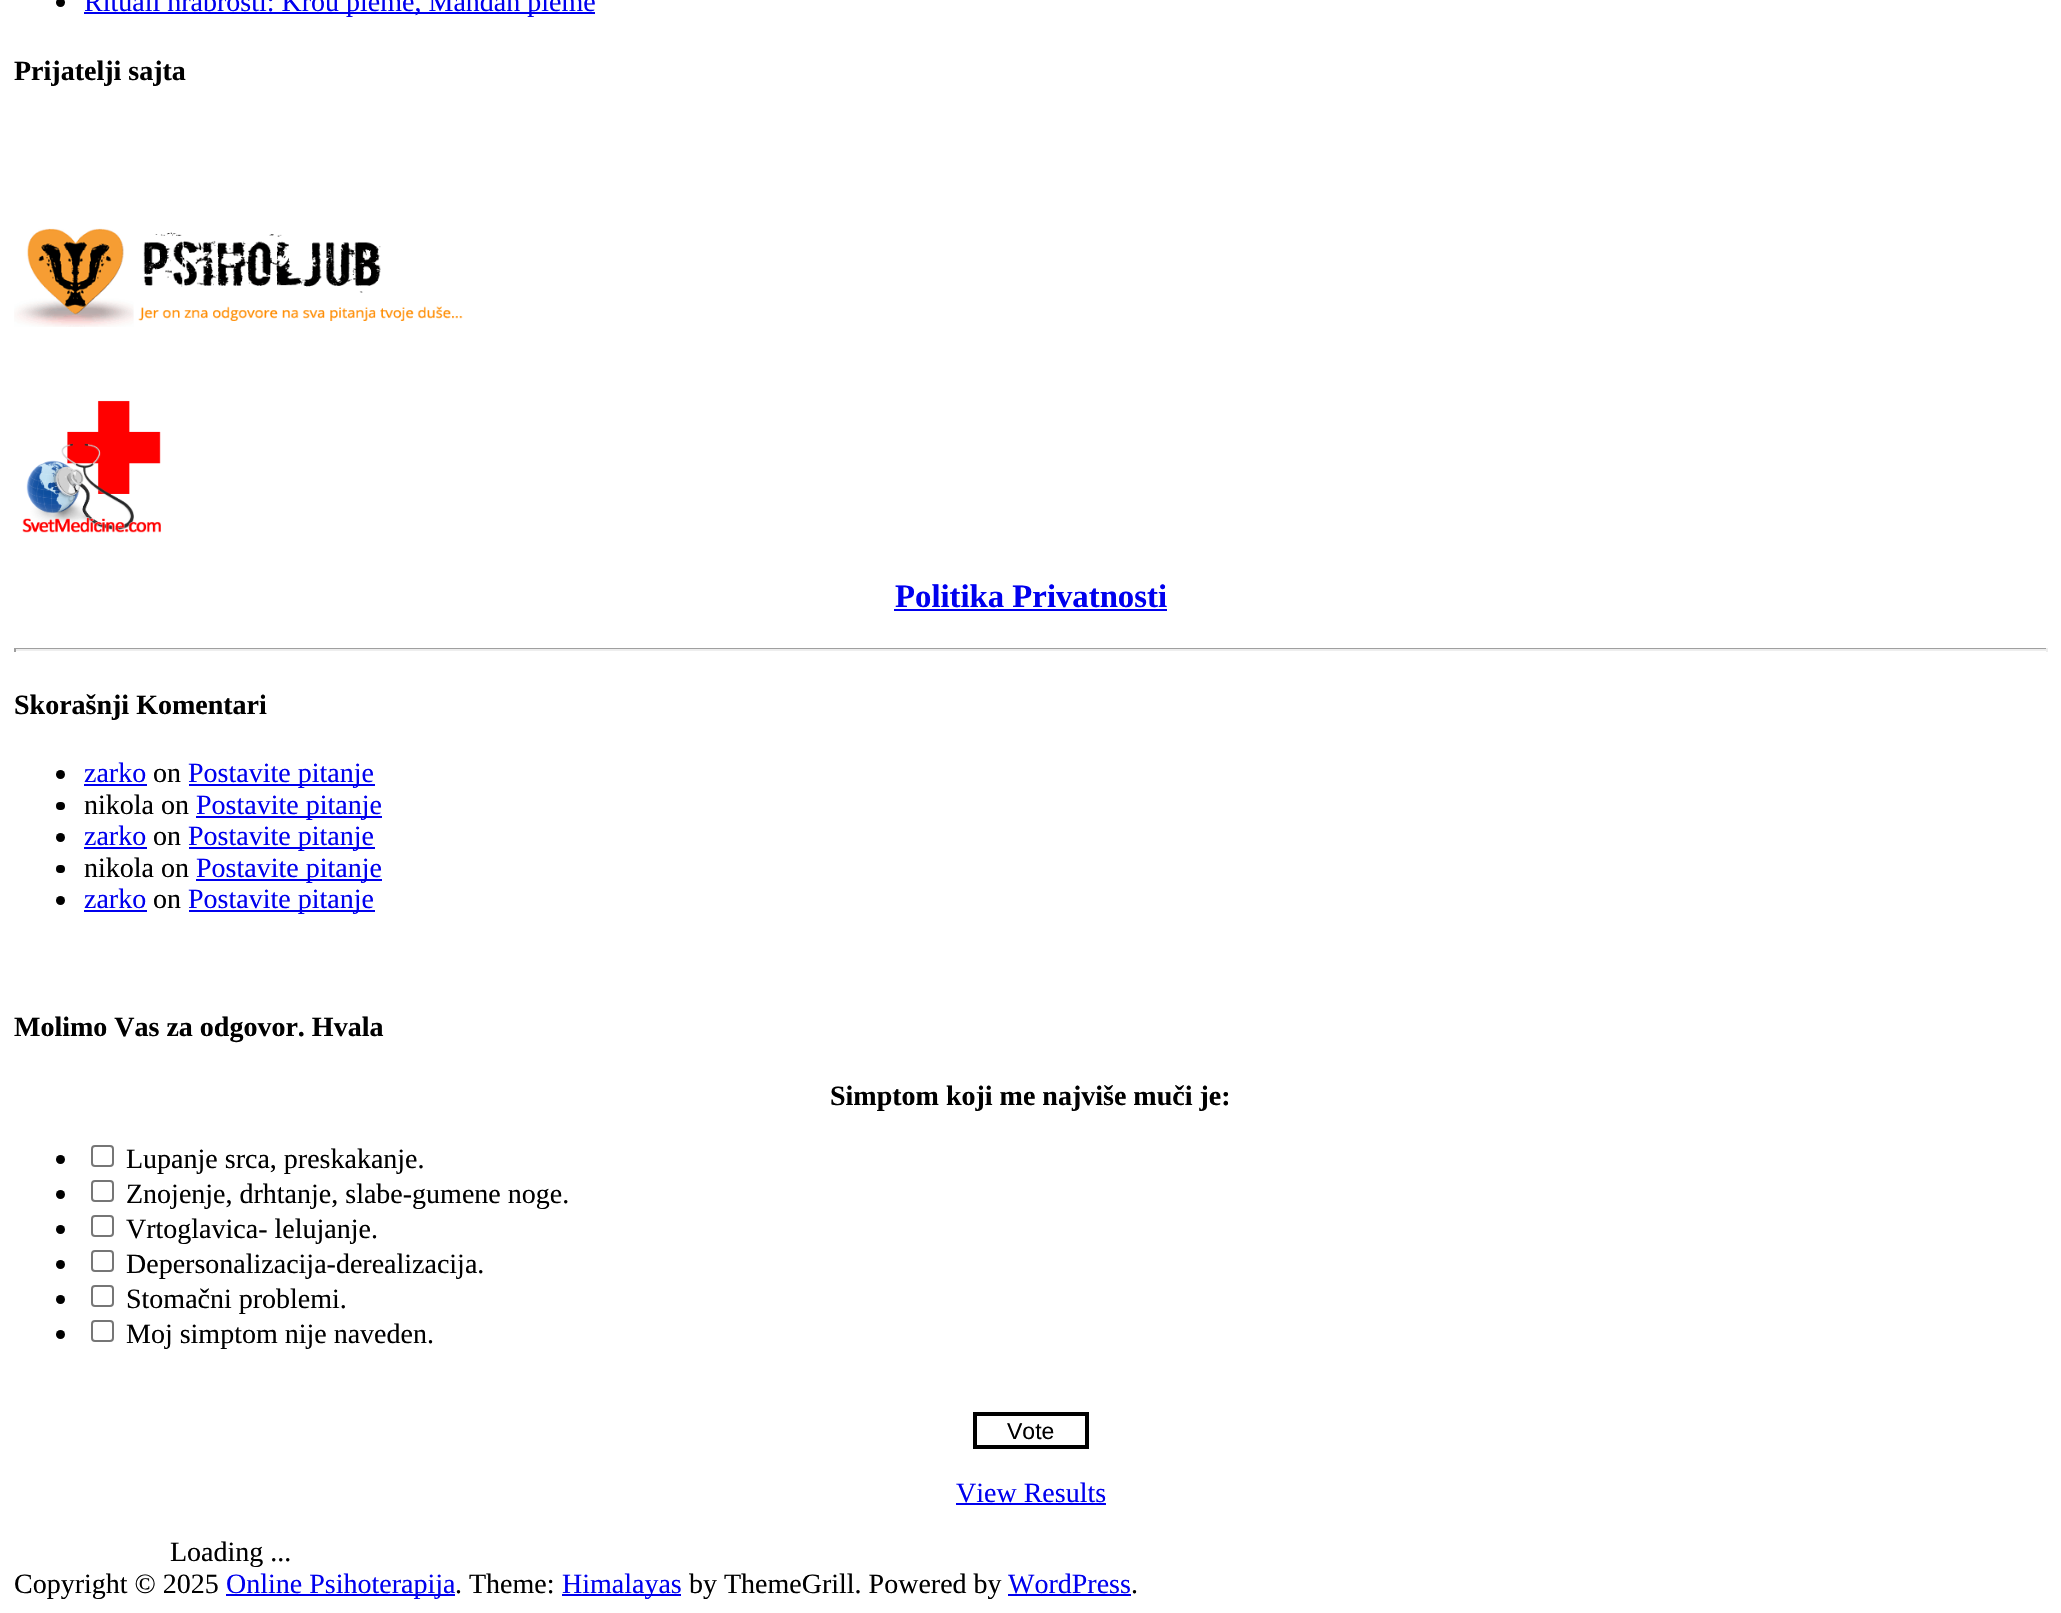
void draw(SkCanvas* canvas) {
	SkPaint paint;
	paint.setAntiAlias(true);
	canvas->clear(0xffffffff);
	paint.setColor(0xff000000);
	canvas->drawCircle(60.5, 2.5, 4.5, paint);
	paint.setColor(0xff0000ee);
	canvas->drawRect(SkRect::MakeXYWH(84, 12, 511, 2), paint);
	SkFont f1(fontMgr->matchFamilyStyle("Liberation Serif", SkFontStyle::Normal()), 28);
	f1.setSubpixel(true);
	canvas->drawString("Rituali hrabrosti: Krou pleme, Mandan pleme", 84, 11, f1, paint);
	SkFont f2(fontMgr->matchFamilyStyle("Liberation Serif", SkFontStyle::Bold()), 28);
	f2.setSubpixel(true);
	paint.setColor(0xff000000);
	canvas->drawString("Prijatelji sajta", 14, 80, f2, paint);
	canvas->drawImageRect(SkImages::DeferredFromEncodedData(SkData::MakeFromFileName("img1.png")), SkRect::MakeXYWH(14, 228, 449, 99), SkSamplingOptions());
	canvas->drawImageRect(SkImages::DeferredFromEncodedData(SkData::MakeFromFileName("img2.png")), SkRect::MakeXYWH(22, 400, 139, 133), SkSamplingOptions());
	SkFont f3(fontMgr->matchFamilyStyle("Liberation Serif", SkFontStyle::Bold()), 32.75);
	f3.setSubpixel(true);
	paint.setColor(0xff0000ee);
	canvas->drawString("Politika Privatnosti", 895, 607, f3, paint);
	canvas->drawRect(SkRect::MakeXYWH(894, 609, 273, 2), paint);
	paint.setColor(0xff9f9f9f);
	canvas->drawRect(SkRect::MakeXYWH(14, 648, 2034, 1), paint);
	paint.setColor(0xffeeeeee);
	canvas->drawRect(SkRect::MakeXYWH(2046, 648, 2, 4), paint);
	canvas->drawRect(SkRect::MakeXYWH(14, 649, 2034, 2), paint);
	paint.setColor(0xff9f9f9f);
	canvas->drawRect(SkRect::MakeXYWH(14, 648, 2, 4), paint);
	paint.setColor(0xff000000);
	canvas->drawString("Skorašnji Komentari", 14, 714, f2, paint);
	canvas->drawCircle(60.5, 774.5, 4.5, paint);
	paint.setColor(0xff0000ee);
	canvas->drawString("zarko", 84, 782, f1, paint);
	canvas->drawRect(SkRect::MakeXYWH(84, 784, 63, 2), paint);
	paint.setColor(0xff000000);
	canvas->drawString("on", 153, 782, f1, paint);
	paint.setColor(0xff0000ee);
	canvas->drawRect(SkRect::MakeXYWH(189, 784, 186, 2), paint);
	canvas->drawString("Postavite pitanje", 188, 782, f1, paint);
	paint.setColor(0xff000000);
	canvas->drawRoundRect(SkRect::MakeXYWH(56, 802, 9, 8), 4, 4, paint);
	canvas->drawString("nikola on", 84, 814, f1, paint);
	paint.setColor(0xff0000ee);
	canvas->drawRect(SkRect::MakeXYWH(196, 816, 186, 2), paint);
	canvas->drawString("Postavite pitanje", 196, 814, f1, paint);
	paint.setColor(0xff000000);
	canvas->drawCircle(60.5, 837.5, 4.5, paint);
	paint.setColor(0xff0000ee);
	canvas->drawString("zarko", 84, 845, f1, paint);
	canvas->drawRect(SkRect::MakeXYWH(84, 847, 63, 2), paint);
	paint.setColor(0xff000000);
	canvas->drawString("on", 153, 845, f1, paint);
	paint.setColor(0xff0000ee);
	canvas->drawRect(SkRect::MakeXYWH(189, 847, 186, 2), paint);
	canvas->drawString("Postavite pitanje", 188, 845, f1, paint);
	paint.setColor(0xff000000);
	canvas->drawRoundRect(SkRect::MakeXYWH(56, 865, 9, 8), 4, 4, paint);
	canvas->drawString("nikola on", 84, 877, f1, paint);
	paint.setColor(0xff0000ee);
	canvas->drawRect(SkRect::MakeXYWH(196, 879, 186, 2), paint);
	canvas->drawString("Postavite pitanje", 196, 877, f1, paint);
	paint.setColor(0xff000000);
	canvas->drawCircle(60.5, 900.5, 4.5, paint);
	paint.setColor(0xff0000ee);
	canvas->drawString("zarko", 84, 908, f1, paint);
	canvas->drawRect(SkRect::MakeXYWH(84, 910, 63, 2), paint);
	paint.setColor(0xff000000);
	canvas->drawString("on", 153, 908, f1, paint);
	paint.setColor(0xff0000ee);
	canvas->drawRect(SkRect::MakeXYWH(189, 910, 186, 2), paint);
	canvas->drawString("Postavite pitanje", 188, 908, f1, paint);
	paint.setColor(0xff000000);
	canvas->drawString("Molimo Vas za odgovor. Hvala", 14, 1036, f2, paint);
	canvas->drawString("Simptom koji me najviše muči je:", 830, 1105, f2, paint);
	canvas->drawCircle(60.5, 1159.5, 4.5, paint);
	paint.setStroke(true);
	paint.setStrokeWidth(2);
	paint.setColor(0xff767676);
	canvas->drawRoundRect(SkRect::MakeXYWH(92, 1146, 21, 20), 3, 3, paint);
	paint.setStroke(false);
	paint.setColor(0xff000000);
	canvas->drawString("Lupanje srca, preskakanje.", 126, 1168, f1, paint);
	canvas->drawCircle(60.5, 1194.5, 4.5, paint);
	paint.setStroke(true);
	paint.setColor(0xff767676);
	canvas->drawRoundRect(SkRect::MakeXYWH(92, 1181, 21, 20), 3, 3, paint);
	paint.setStroke(false);
	paint.setColor(0xff000000);
	canvas->drawString("Znojenje, drhtanje, slabe-gumene noge.", 126, 1203, f1, paint);
	canvas->drawCircle(60.5, 1229.5, 4.5, paint);
	paint.setStroke(true);
	paint.setColor(0xff767676);
	canvas->drawRoundRect(SkRect::MakeXYWH(92, 1216, 21, 20), 3, 3, paint);
	paint.setStroke(false);
	paint.setColor(0xff000000);
	canvas->drawString("Vrtoglavica- lelujanje.", 126, 1238, f1, paint);
	canvas->drawCircle(60.5, 1264.5, 4.5, paint);
	paint.setStroke(true);
	paint.setColor(0xff767676);
	canvas->drawRoundRect(SkRect::MakeXYWH(92, 1251, 21, 20), 3, 3, paint);
	paint.setStroke(false);
	paint.setColor(0xff000000);
	canvas->drawString("Depersonalizacija-derealizacija.", 126, 1273, f1, paint);
	canvas->drawCircle(60.5, 1299.5, 4.5, paint);
	paint.setStroke(true);
	paint.setColor(0xff767676);
	canvas->drawRoundRect(SkRect::MakeXYWH(92, 1286, 21, 20), 3, 3, paint);
	paint.setStroke(false);
	paint.setColor(0xff000000);
	canvas->drawString("Stomačni problemi.", 126, 1308, f1, paint);
	canvas->drawCircle(60.5, 1334.5, 4.5, paint);
	paint.setStroke(true);
	paint.setColor(0xff767676);
	canvas->drawRoundRect(SkRect::MakeXYWH(92, 1321, 21, 20), 3, 3, paint);
	paint.setStroke(false);
	paint.setColor(0xff000000);
	canvas->drawString("Moj simptom nije naveden.", 126, 1343, f1, paint);
	paint.setStroke(true);
	paint.setStrokeWidth(4);
	canvas->drawRect(SkRect::MakeXYWH(975, 1414, 112, 33), paint);
	SkFont f4(fontMgr->matchFamilyStyle("Liberation Sans", SkFontStyle::Normal()), 23);
	f4.setSubpixel(true);
	paint.setStroke(false);
	canvas->drawString("Vote", 1007, 1439, f4, paint);
	paint.setColor(0xff0000ee);
	canvas->drawString("View Results", 956, 1502, f1, paint);
	canvas->drawRect(SkRect::MakeXYWH(956, 1503, 150, 2), paint);
	paint.setColor(0xff000000);
	canvas->drawString("Loading ...", 170, 1561, f1, paint);
	canvas->drawString("Copyright © 2025", 14, 1593, f1, paint);
	paint.setColor(0xff0000ee);
	canvas->drawRect(SkRect::MakeXYWH(226, 1594, 229, 2), paint);
	canvas->drawString("Online Psihoterapija", 226, 1593, f1, paint);
	paint.setColor(0xff000000);
	canvas->drawString(". Theme:", 455, 1593, f1, paint);
	paint.setColor(0xff0000ee);
	canvas->drawRect(SkRect::MakeXYWH(562, 1594, 119, 2), paint);
	canvas->drawString("Himalayas", 562, 1593, f1, paint);
	paint.setColor(0xff000000);
	canvas->drawString("by ThemeGrill. Powered by", 689, 1593, f1, paint);
	paint.setColor(0xff0000ee);
	canvas->drawString("WordPress", 1008, 1593, f1, paint);
	paint.setColor(0xff000000);
	canvas->drawString(".", 1131, 1593, f1, paint);
	paint.setColor(0xff0000ee);
	canvas->drawRect(SkRect::MakeXYWH(1008, 1594, 123, 2), paint);
}
